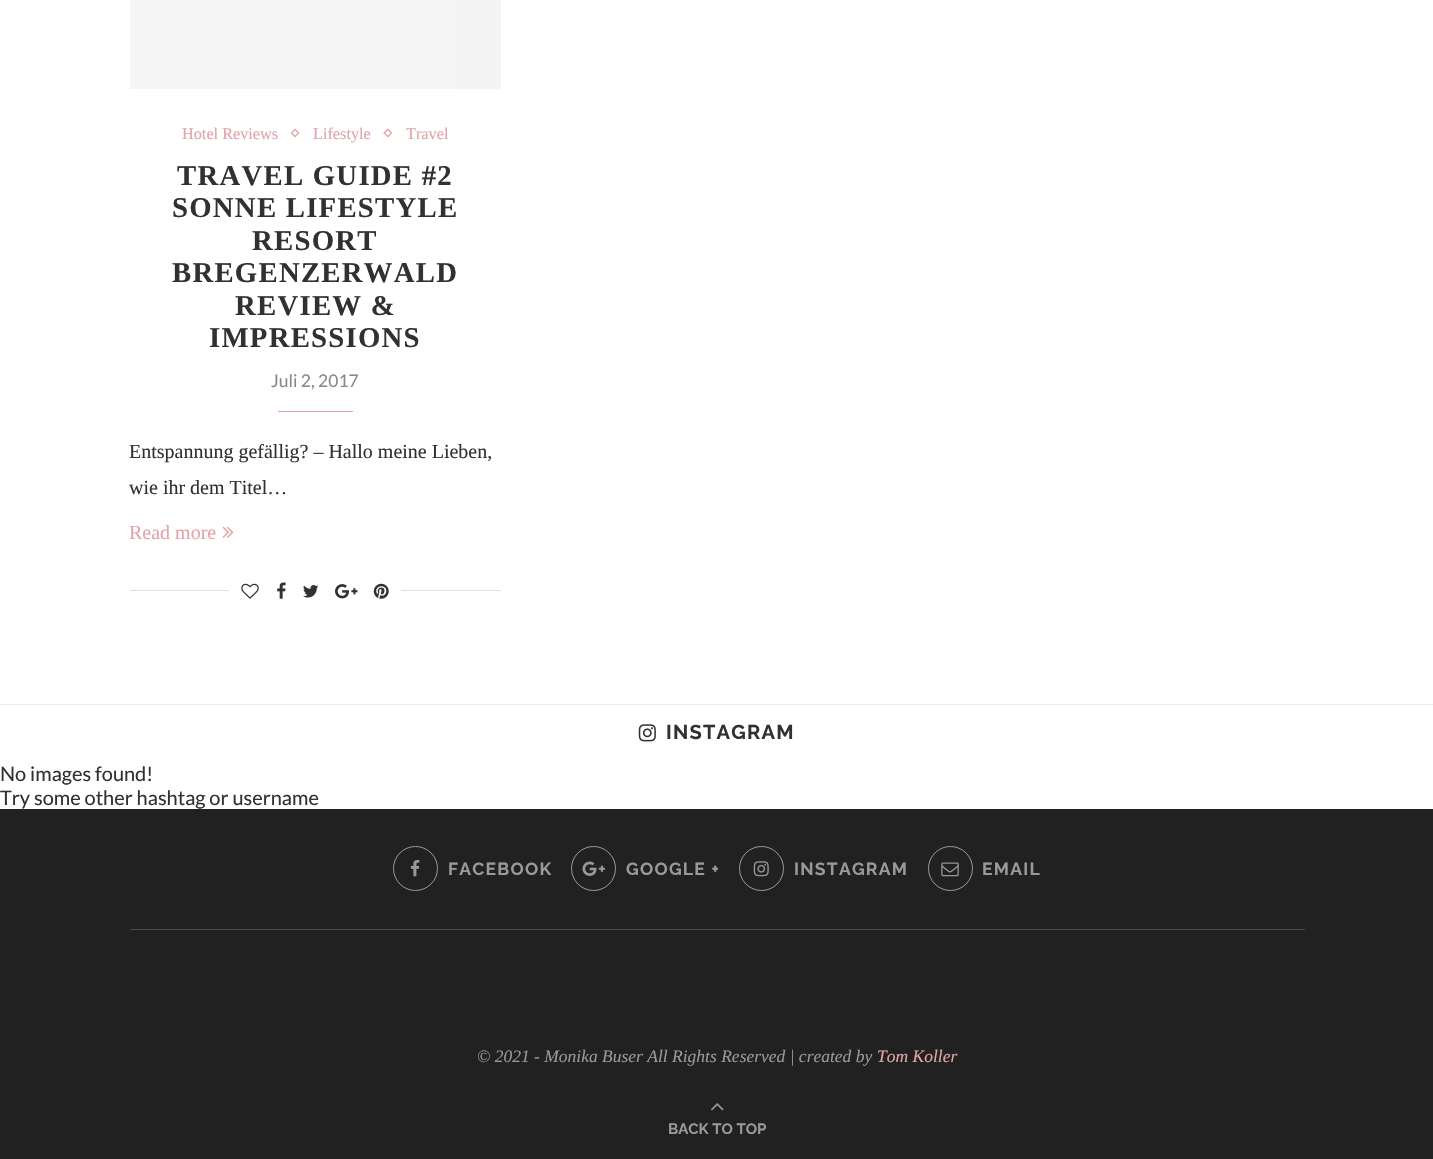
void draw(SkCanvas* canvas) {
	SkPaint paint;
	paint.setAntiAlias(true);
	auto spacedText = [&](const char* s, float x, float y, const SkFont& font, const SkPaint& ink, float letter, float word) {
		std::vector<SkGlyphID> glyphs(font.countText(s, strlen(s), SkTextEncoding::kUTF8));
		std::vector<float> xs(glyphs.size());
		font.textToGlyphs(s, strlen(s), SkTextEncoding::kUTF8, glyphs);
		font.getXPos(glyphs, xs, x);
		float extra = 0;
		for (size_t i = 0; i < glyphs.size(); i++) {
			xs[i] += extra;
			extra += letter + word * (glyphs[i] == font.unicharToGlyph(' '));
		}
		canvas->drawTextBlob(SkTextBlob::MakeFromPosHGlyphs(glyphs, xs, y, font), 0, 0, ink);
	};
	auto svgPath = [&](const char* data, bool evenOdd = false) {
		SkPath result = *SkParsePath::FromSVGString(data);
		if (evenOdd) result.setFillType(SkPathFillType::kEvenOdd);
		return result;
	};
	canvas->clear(0xffffffff);
	{
		const SkColor colors[] = {0xfff5f5f5, 0xffefefef, 0xfff5f5f5, 0xfff5f5f5};
		const float stops[] = {0, 0.15, 0.4, 1};
		const SkPoint ends[] = {{878, -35}, {-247, -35}};
		paint.setShader(SkGradientShader::MakeLinear(ends, colors, stops, 4, SkTileMode::kClamp));
		paint.setAlpha(255);
	}
	canvas->drawRect(SkRect::MakeXYWH(130, 0, 371, 89), paint);
	SkFont f1(fontMgr->matchFamilyStyle("Liberation Serif", SkFontStyle::Normal()), 16.25);
	f1.setSubpixel(true);
	paint.setShader(nullptr);
	paint.setColor(0xffe2a4a7);
	canvas->drawString("Hotel Reviews", 182, 139, f1, paint);
	paint.setStroke(true);
	paint.setStrokeWidth(1.3);
	canvas->drawPath(svgPath("M295 129.5L298.5 133L295 136.5L291.5 133Z"), paint);
	paint.setStroke(false);
	canvas->drawString("Lifestyle", 313, 139, f1, paint);
	paint.setStroke(true);
	canvas->drawPath(svgPath("M388 129.5L391.5 133L388 136.5L384 133Z"), paint);
	paint.setStroke(false);
	canvas->drawString("Travel", 406, 139, f1, paint);
	SkFont f2(fontMgr->matchFamilyStyle("Liberation Serif", SkFontStyle::Bold()), 28.75);
	f2.setSubpixel(true);
	paint.setColor(0xff313131);
	spacedText("TRAVEL GUIDE #2", 177, 185, f2, paint, 1.25, 0);
	spacedText("SONNE LIFESTYLE", 172, 217, f2, paint, 1.25, 0);
	spacedText("RESORT", 252, 250, f2, paint, 1.25, 0);
	spacedText("BREGENZERWALD", 172, 282, f2, paint, 1.25, 0);
	spacedText("REVIEW &", 235, 315, f2, paint, 1.25, 0);
	spacedText("IMPRESSIONS", 209, 347, f2, paint, 1.25, 0);
	SkFont f3(fontMgr->matchFamilyStyle("Lato", SkFontStyle::Normal()), 17.5);
	f3.setSubpixel(true);
	paint.setColor(0xff888888);
	canvas->drawString("Juli 2, 2017", 271, 387, f3, paint);
	paint.setColor(0xffe2a4a7);
	canvas->drawRect(SkRect::MakeXYWH(278, 411, 75, 1), paint);
	SkFont f4(fontMgr->matchFamilyStyle("Liberation Serif", SkFontStyle::Normal()), 20);
	f4.setSubpixel(true);
	paint.setColor(0xff313131);
	canvas->drawString("Entspannung gefällig? – Hallo meine Lieben,", 129, 458, f4, paint);
	canvas->drawString("wie ihr dem Titel…", 129, 494, f4, paint);
	paint.setColor(0xffe2a4a7);
	canvas->drawString("Read more", 129, 539, f4, paint);
	canvas->drawImageRect(SkImages::DeferredFromEncodedData(SkData::MakeFromFileName("img1.png")), SkRect::MakeXYWH(222, 526, 12, 12), SkSamplingOptions());
	paint.setColor(0xffdedede);
	canvas->drawRect(SkRect::MakeXYWH(130, 590, 371, 1), paint);
	paint.setColor(0xffffffff);
	canvas->drawRect(SkRect::MakeXYWH(229, 590, 172, 1), paint);
	canvas->drawImageRect(SkImages::DeferredFromEncodedData(SkData::MakeFromFileName("img2.png")), SkRect::MakeXYWH(241, 583, 18, 16), SkSamplingOptions());
	canvas->drawImageRect(SkImages::DeferredFromEncodedData(SkData::MakeFromFileName("img3.png")), SkRect::MakeXYWH(277, 582, 9, 17), SkSamplingOptions());
	canvas->drawImageRect(SkImages::DeferredFromEncodedData(SkData::MakeFromFileName("img4.png")), SkRect::MakeXYWH(303, 585, 16, 13), SkSamplingOptions());
	canvas->drawImageRect(SkImages::DeferredFromEncodedData(SkData::MakeFromFileName("img5.png")), SkRect::MakeXYWH(335, 584, 23, 15), SkSamplingOptions());
	canvas->drawImageRect(SkImages::DeferredFromEncodedData(SkData::MakeFromFileName("img6.png")), SkRect::MakeXYWH(373, 583, 16, 16), SkSamplingOptions());
	paint.setColor(0xffececec);
	canvas->drawRect(SkRect::MakeXYWH(0, 704, 1433, 1), paint);
	canvas->drawImageRect(SkImages::DeferredFromEncodedData(SkData::MakeFromFileName("img7.png")), SkRect::MakeXYWH(638, 724, 18, 18), SkSamplingOptions());
	SkFont f5(fontMgr->matchFamilyStyle("Raleway", SkFontStyle::Bold()), 20);
	f5.setSubpixel(true);
	paint.setColor(0xff313131);
	spacedText("INSTAGRAM", 666, 739, f5, paint, 1.25, 0);
	SkFont f6(fontMgr->matchFamilyStyle("Lato", SkFontStyle::Normal()), 20);
	f6.setSubpixel(true);
	canvas->drawString("No images found!", 0, 781, f6, paint);
	canvas->drawString("Try some other hashtag or username", 0, 805, f6, paint);
	paint.setColor(0xff212121);
	canvas->drawRect(SkRect::MakeXYWH(0, 809, 1433, 350), paint);
	paint.setColor(0xff4a4a4a);
	canvas->drawRect(SkRect::MakeXYWH(130, 929, 1175, 1), paint);
	paint.setStroke(true);
	paint.setStrokeWidth(1);
	paint.setColor(0xff999999);
	canvas->drawCircle(415.5, 868.5, 22, paint);
	canvas->drawImageRect(SkImages::DeferredFromEncodedData(SkData::MakeFromFileName("img8.png")), SkRect::MakeXYWH(410, 860, 10, 17), SkSamplingOptions());
	SkFont f7(fontMgr->matchFamilyStyle("Raleway", SkFontStyle::Bold()), 17.5);
	f7.setSubpixel(true);
	paint.setStroke(false);
	spacedText("FACEBOOK", 448, 875, f7, paint, 1.25, 0);
	paint.setStroke(true);
	canvas->drawCircle(593.5, 868.5, 22, paint);
	canvas->drawImageRect(SkImages::DeferredFromEncodedData(SkData::MakeFromFileName("img9.png")), SkRect::MakeXYWH(582, 861, 23, 15), SkSamplingOptions());
	paint.setStroke(false);
	spacedText("GOOGLE +", 626, 875, f7, paint, 1.25, 0);
	paint.setStroke(true);
	canvas->drawCircle(761.5, 868.5, 22, paint);
	canvas->drawImageRect(SkImages::DeferredFromEncodedData(SkData::MakeFromFileName("img10.png")), SkRect::MakeXYWH(753, 861, 16, 16), SkSamplingOptions());
	paint.setStroke(false);
	spacedText("INSTAGRAM", 794, 875, f7, paint, 1.25, 0);
	paint.setStroke(true);
	canvas->drawCircle(950.5, 868.5, 22, paint);
	canvas->drawImageRect(SkImages::DeferredFromEncodedData(SkData::MakeFromFileName("img11.png")), SkRect::MakeXYWH(941, 862, 18, 15), SkSamplingOptions());
	paint.setStroke(false);
	spacedText("EMAIL", 982, 875, f7, paint, 1.25, 0);
	SkFont f8(fontMgr->matchFamilyStyle("Liberation Serif", SkFontStyle::Italic()), 17.5);
	f8.setSubpixel(true);
	canvas->drawString("© 2021 - Monika Buser All Rights Reserved | created by", 477, 1062, f8, paint);
	paint.setColor(0xffe2a4a7);
	canvas->drawString("Tom Koller", 877, 1062, f8, paint);
	canvas->drawImageRect(SkImages::DeferredFromEncodedData(SkData::MakeFromFileName("img12.png")), SkRect::MakeXYWH(711, 1103, 13, 8), SkSamplingOptions());
	SkFont f9(fontMgr->matchFamilyStyle("Raleway", SkFontStyle::Bold()), 15);
	f9.setSubpixel(true);
	paint.setColor(0xff999999);
	canvas->drawString("BACK TO TOP", 668, 1134, f9, paint);
}
